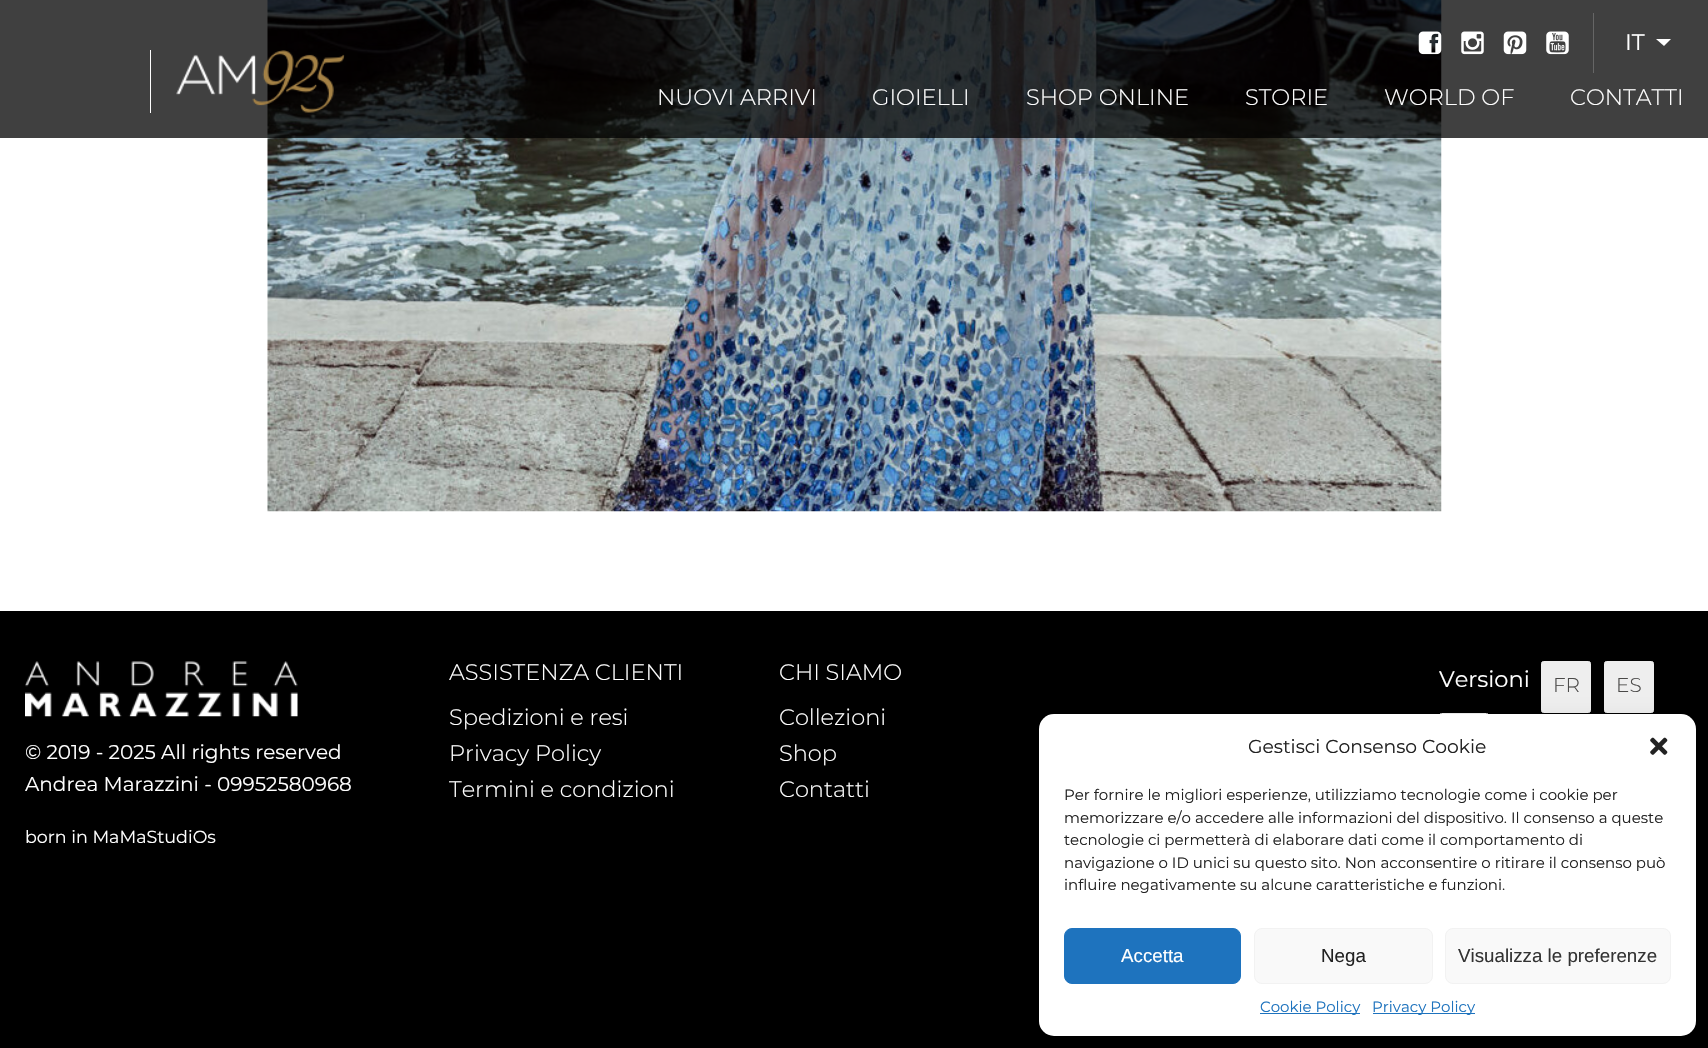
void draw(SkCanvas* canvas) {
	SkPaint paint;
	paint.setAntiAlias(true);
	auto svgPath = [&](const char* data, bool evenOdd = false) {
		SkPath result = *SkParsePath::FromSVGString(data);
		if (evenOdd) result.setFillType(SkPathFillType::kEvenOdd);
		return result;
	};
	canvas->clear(0xffffffff);
	canvas->drawImageRect(SkImages::DeferredFromEncodedData(SkData::MakeFromFileName("img1.png")), SkRect::MakeXYWH(267, 0, 1175, 512), SkSamplingOptions());
	paint.setColor(0x80000000);
	canvas->drawRect(SkRect::MakeXYWH(0, 0, 1708, 138), paint);
	canvas->drawRect(SkRect::MakeXYWH(0, 0, 1708, 138), paint);
	canvas->drawImageRect(SkImages::DeferredFromEncodedData(SkData::MakeFromFileName("img2.png")), SkRect::MakeXYWH(1418, 31, 24, 24), SkSamplingOptions());
	canvas->drawImageRect(SkImages::DeferredFromEncodedData(SkData::MakeFromFileName("img3.png")), SkRect::MakeXYWH(1461, 31, 23, 24), SkSamplingOptions());
	canvas->drawImageRect(SkImages::DeferredFromEncodedData(SkData::MakeFromFileName("img4.png")), SkRect::MakeXYWH(1503, 31, 24, 24), SkSamplingOptions());
	canvas->drawImageRect(SkImages::DeferredFromEncodedData(SkData::MakeFromFileName("img5.png")), SkRect::MakeXYWH(1546, 31, 23, 24), SkSamplingOptions());
	paint.setColor(0xff666666);
	canvas->drawRect(SkRect::MakeXYWH(1593, 13, 1, 60), paint);
	SkFont f1(fontMgr->matchFamilyStyle("Montserrat", SkFontStyle::Normal()), 22.5);
	f1.setSubpixel(true);
	paint.setColor(0xffffffff);
	canvas->drawString("IT", 1625, 50, f1, paint);
	canvas->drawPath(svgPath("M1656 39H1671L1664 46Z"), paint);
	canvas->drawRect(SkRect::MakeXYWH(150, 50, 1, 63), paint);
	canvas->drawImageRect(SkImages::DeferredFromEncodedData(SkData::MakeFromFileName("img6.png")), SkRect::MakeXYWH(176, 50, 169, 63), SkSamplingOptions());
	SkFont f2(fontMgr->matchFamilyStyle("Montserrat", SkFontStyle(300, SkFontStyle::kNormal_Width, SkFontStyle::kUpright_Slant)), 22.5);
	f2.setSubpixel(true);
	canvas->drawString("NUOVI ARRIVI", 657, 105, f2, paint);
	canvas->drawString("GIOIELLI", 872, 105, f2, paint);
	canvas->drawString("SHOP ONLINE", 1026, 105, f2, paint);
	canvas->drawString("STORIE", 1245, 105, f2, paint);
	canvas->drawString("WORLD OF", 1384, 105, f2, paint);
	canvas->drawString("CONTATTI", 1570, 105, f2, paint);
	paint.setColor(0xff000000);
	canvas->drawRect(SkRect::MakeXYWH(0, 611, 1708, 437), paint);
	paint.setColor(0xffffffff);
	canvas->drawString("ASSISTENZA CLIENTI", 449, 680, f2, paint);
	canvas->drawString("Spedizioni e resi", 449, 725, f2, paint);
	canvas->drawString("Privacy Policy", 449, 761, f2, paint);
	canvas->drawString("Termini e condizioni", 449, 797, f2, paint);
	canvas->drawString("CHI SIAMO", 779, 680, f2, paint);
	canvas->drawString("Collezioni", 779, 725, f2, paint);
	canvas->drawString("Shop", 779, 761, f2, paint);
	canvas->drawString("Contatti", 779, 797, f2, paint);
	canvas->drawString("Versioni", 1439, 687, f1, paint);
	paint.setColor(0xffeeeeee);
	canvas->drawRoundRect(SkRect::MakeXYWH(1541.5, 661.5, 49, 51), 2, 2, paint);
	paint.setStroke(true);
	paint.setStrokeWidth(1);
	canvas->drawRoundRect(SkRect::MakeXYWH(1541.5, 661.5, 49, 51), 2, 2, paint);
	SkFont f3(fontMgr->matchFamilyStyle("Montserrat", SkFontStyle(300, SkFontStyle::kNormal_Width, SkFontStyle::kUpright_Slant)), 20);
	f3.setSubpixel(true);
	paint.setStroke(false);
	paint.setColor(0xff4a4948);
	canvas->drawString("FR", 1553, 692, f3, paint);
	paint.setColor(0xffeeeeee);
	canvas->drawRoundRect(SkRect::MakeXYWH(1604.5, 661.5, 49, 51), 2, 2, paint);
	paint.setStroke(true);
	canvas->drawRoundRect(SkRect::MakeXYWH(1604.5, 661.5, 49, 51), 2, 2, paint);
	paint.setStroke(false);
	paint.setColor(0xff4a4948);
	canvas->drawString("ES", 1616, 692, f3, paint);
	paint.setStroke(true);
	paint.setColor(0xffeeeeee);
	canvas->drawRoundRect(SkRect::MakeXYWH(1439.5, 713.5, 49, 50), 2, 2, paint);
	canvas->drawImageRect(SkImages::DeferredFromEncodedData(SkData::MakeFromFileName("img7.png")), SkRect::MakeXYWH(25, 661, 273, 56), SkSamplingOptions());
	SkFont f4(fontMgr->matchFamilyStyle("Montserrat", SkFontStyle::Normal()), 20);
	f4.setSubpixel(true);
	paint.setStroke(false);
	paint.setColor(0xffffffff);
	canvas->drawString("© 2019 - 2025 All rights reserved", 25, 759, f4, paint);
	canvas->drawString("Andrea Marazzini - 09952580968", 25, 791, f4, paint);
	SkFont f5(fontMgr->matchFamilyStyle("Montserrat", SkFontStyle::Normal()), 17.5);
	f5.setSubpixel(true);
	canvas->drawString("born in MaMaStudiOs", 25, 843, f5, paint);
	paint.setColor(0x30000000);
	paint.setMaskFilter(SkMaskFilter::MakeBlur(kNormal_SkBlurStyle, 12.5));
	canvas->drawRoundRect(SkRect::MakeXYWH(1039, 726, 657, 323), 15, 15, paint);
	paint.setMaskFilter(nullptr);
	paint.setColor(0xffffffff);
	canvas->drawRoundRect(SkRect::MakeXYWH(1039, 714, 657, 322), 15, 15, paint);
	SkFont f6(fontMgr->matchFamilyStyle("Montserrat", SkFontStyle::Normal()), 18.75);
	f6.setSubpixel(true);
	paint.setColor(0xff222222);
	canvas->drawString("Gestisci Consenso Cookie", 1248, 753, f6, paint);
	canvas->drawImageRect(SkImages::DeferredFromEncodedData(SkData::MakeFromFileName("img8.png")), SkRect::MakeXYWH(1650, 737, 18, 18), SkSamplingOptions());
	SkFont f7(fontMgr->matchFamilyStyle("Montserrat", SkFontStyle::Normal()), 15);
	f7.setSubpixel(true);
	canvas->drawString("Per fornire le migliori esperienze, utilizziamo tecnologie come i cookie per", 1064, 800, f7, paint);
	canvas->drawString("memorizzare e/o accedere alle informazioni del dispositivo. Il consenso a queste", 1064, 823, f7, paint);
	canvas->drawString("tecnologie ci permetterà di elaborare dati come il comportamento di", 1064, 845, f7, paint);
	canvas->drawString("navigazione o ID unici su questo sito. Non acconsentire o ritirare il consenso può", 1064, 868, f7, paint);
	canvas->drawString("influire negativamente su alcune caratteristiche e funzioni.", 1064, 890, f7, paint);
	paint.setColor(0xff1e73be);
	canvas->drawRoundRect(SkRect::MakeXYWH(1064.5, 928.5, 176, 55), 7.5, 7.5, paint);
	paint.setStroke(true);
	canvas->drawRoundRect(SkRect::MakeXYWH(1064.5, 928.5, 176, 55), 7.5, 7.5, paint);
	SkFont f8(fontMgr->matchFamilyStyle("Liberation Sans", SkFontStyle::Normal()), 18.75);
	f8.setSubpixel(true);
	paint.setStroke(false);
	paint.setColor(0xffffffff);
	canvas->drawString("Accetta", 1121, 962, f8, paint);
	paint.setColor(0xfff9f9f9);
	canvas->drawRoundRect(SkRect::MakeXYWH(1254.5, 928.5, 178, 55), 7.5, 7.5, paint);
	paint.setStroke(true);
	paint.setColor(0xfff2f2f2);
	canvas->drawRoundRect(SkRect::MakeXYWH(1254.5, 928.5, 178, 55), 7.5, 7.5, paint);
	paint.setStroke(false);
	paint.setColor(0xff222222);
	canvas->drawString("Nega", 1321, 962, f8, paint);
	paint.setColor(0xfff9f9f9);
	canvas->drawRoundRect(SkRect::MakeXYWH(1445.5, 928.5, 225, 55), 7.5, 7.5, paint);
	paint.setStroke(true);
	paint.setColor(0xfff2f2f2);
	canvas->drawRoundRect(SkRect::MakeXYWH(1445.5, 928.5, 225, 55), 7.5, 7.5, paint);
	paint.setStroke(false);
	paint.setColor(0xff333333);
	canvas->drawString("Visualizza le preferenze", 1458, 962, f8, paint);
	paint.setColor(0xff1e73be);
	canvas->drawRect(SkRect::MakeXYWH(1260, 1013, 100, 1), paint);
	canvas->drawString("Cookie Policy", 1260, 1012, f7, paint);
	canvas->drawRect(SkRect::MakeXYWH(1373, 1013, 102, 1), paint);
	canvas->drawString("Privacy Policy", 1372, 1012, f7, paint);
}
